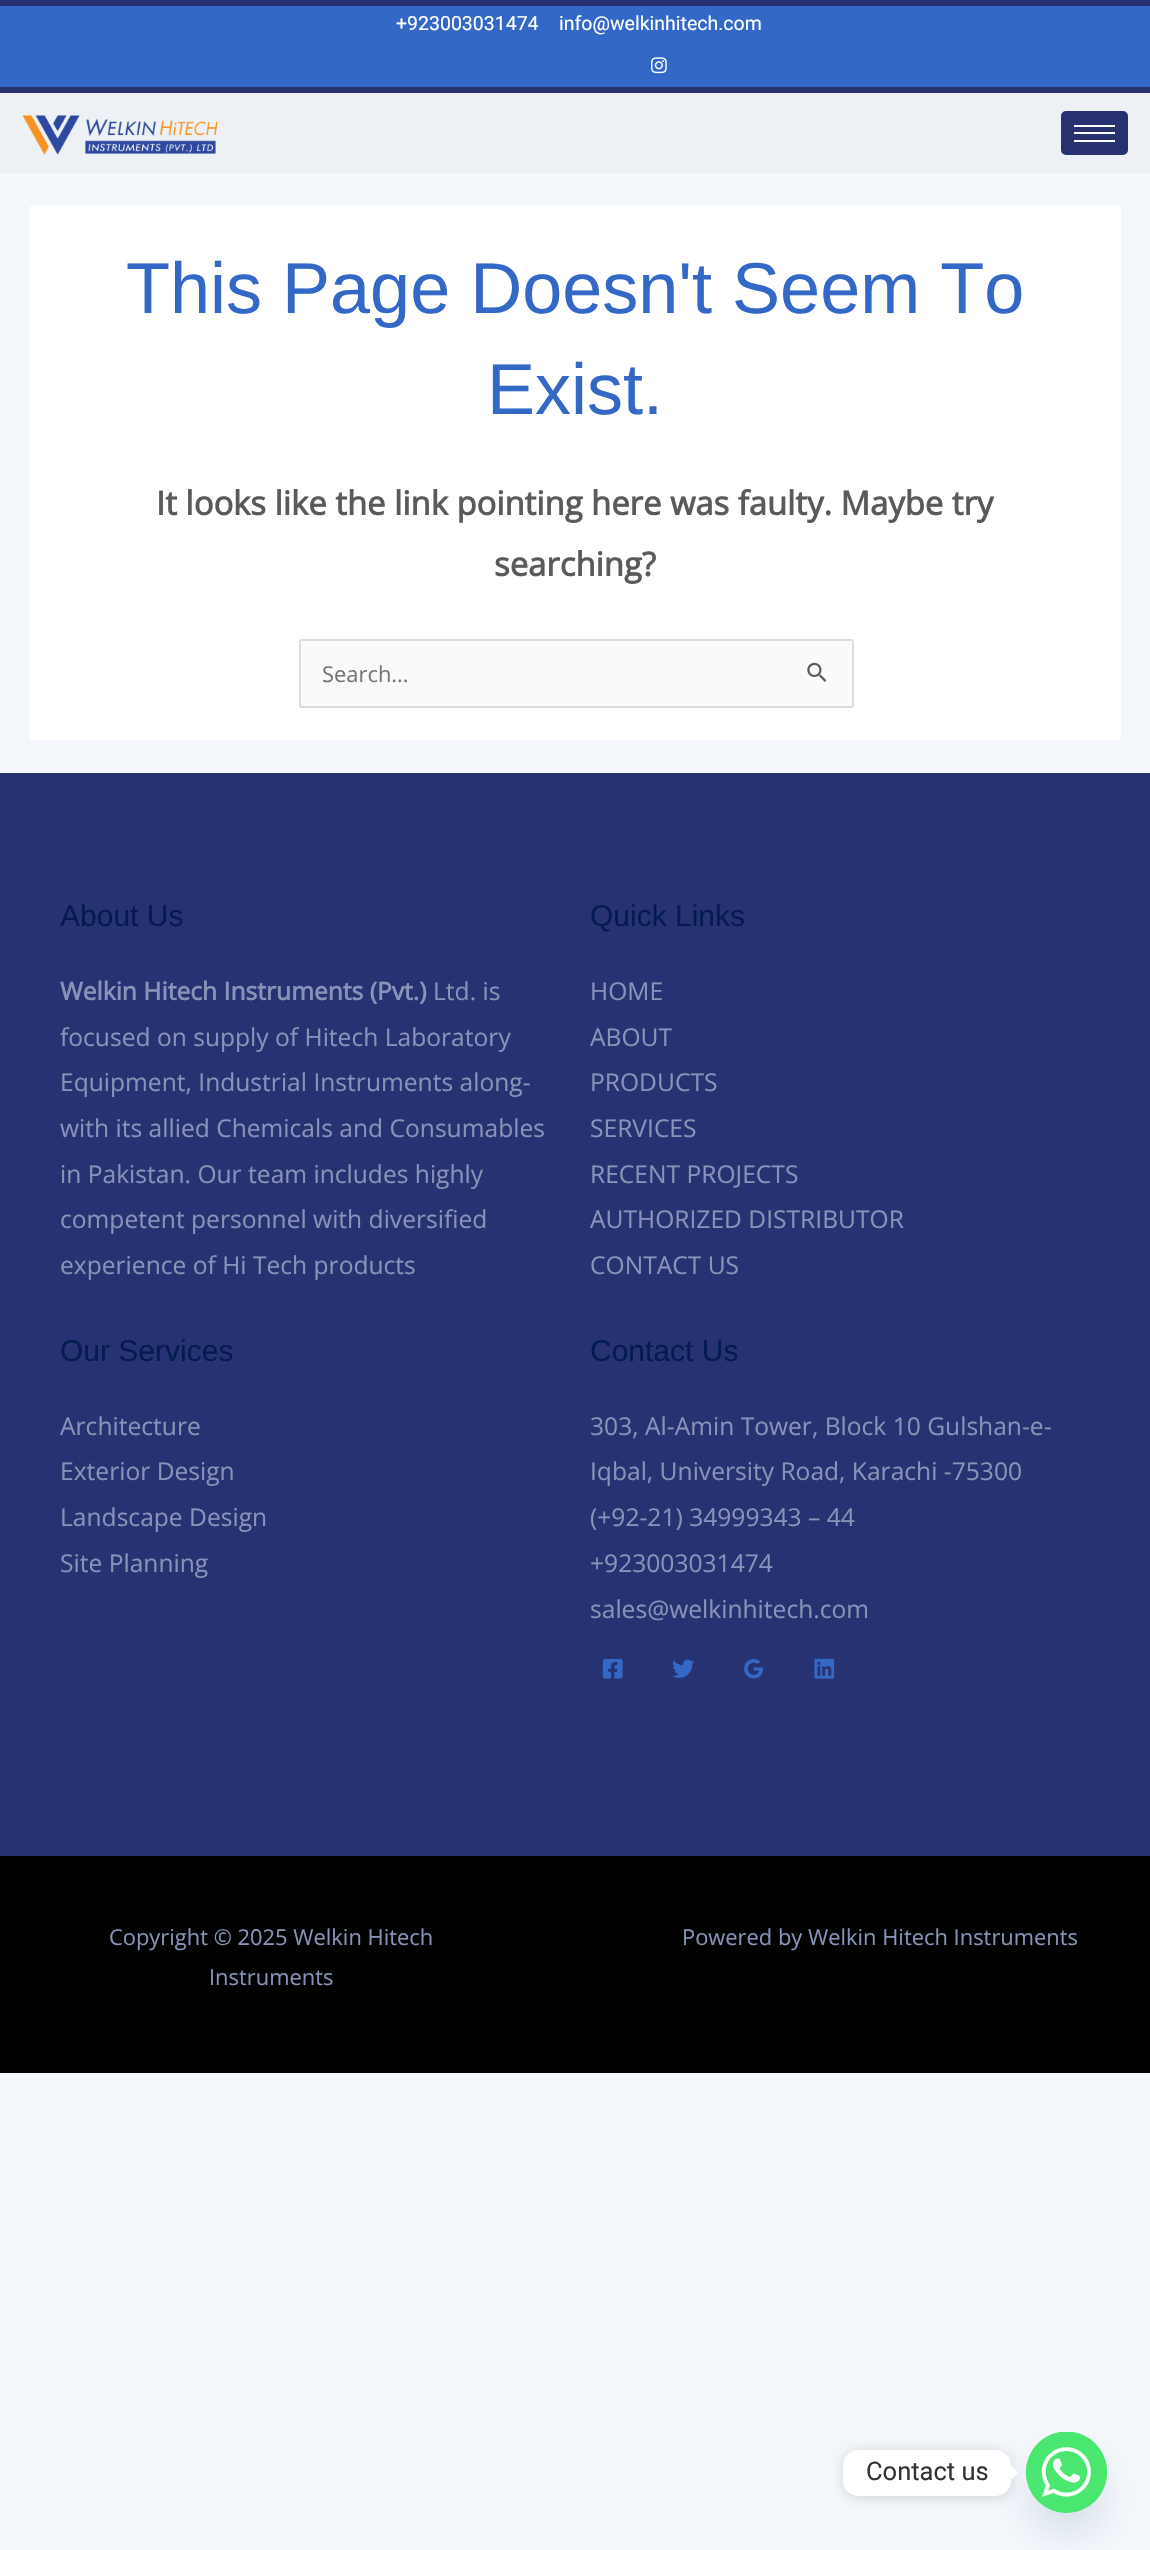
void draw(SkCanvas* canvas) {
	SkPaint paint;
	paint.setAntiAlias(true);
	auto svgPath = [&](const char* data, bool evenOdd = false) {
		SkPath result = *SkParsePath::FromSVGString(data);
		if (evenOdd) result.setFillType(SkPathFillType::kEvenOdd);
		return result;
	};
	canvas->clear(0xfff4f8fd);
	paint.setColor(0xffedf1f5);
	canvas->drawRect(SkRect::MakeXYWH(0, 93, 1150, 80), paint);
	paint.setColor(0xff273272);
	canvas->drawRect(SkRect::MakeXYWH(0, 0, 1150, 93), paint);
	paint.setColor(0xff3368c6);
	canvas->drawRect(SkRect::MakeXYWH(0, 6, 1150, 81), paint);
	SkFont f1(fontMgr->matchFamilyStyle("Roboto", SkFontStyle::Normal()), 19.5);
	f1.setSubpixel(true);
	paint.setColor(0xffffffff);
	canvas->drawString("+923003031474", 396, 30, f1, paint);
	canvas->drawString("info@welkinhitech.com", 559, 30, f1, paint);
	canvas->drawImageRect(SkImages::DeferredFromEncodedData(SkData::MakeFromFileName("img1.png")), SkRect::MakeXYWH(651, 57, 16, 17), SkSamplingOptions());
	canvas->drawImageRect(SkImages::DeferredFromEncodedData(SkData::MakeFromFileName("img2.png")), SkRect::MakeXYWH(22, 115, 196, 40), SkSamplingOptions());
	paint.setColor(0xff273171);
	canvas->drawRoundRect(SkRect::MakeXYWH(1062, 112, 65, 42), 4, 4, paint);
	paint.setStroke(true);
	paint.setStrokeWidth(2);
	canvas->drawRoundRect(SkRect::MakeXYWH(1062, 112, 65, 42), 4, 4, paint);
	paint.setStroke(false);
	paint.setColor(0xffffffff);
	canvas->drawRect(SkRect::MakeXYWH(1074, 125, 41, 2), paint);
	canvas->drawRect(SkRect::MakeXYWH(1074, 132, 41, 2), paint);
	canvas->drawRect(SkRect::MakeXYWH(1074, 140, 41, 2), paint);
	canvas->drawRect(SkRect::MakeXYWH(30, 206, 1091, 534), paint);
	SkFont f2(fontMgr->matchFamilyStyle("Liberation Sans", SkFontStyle::Normal()), 72);
	f2.setSubpixel(true);
	paint.setColor(0xff3368c6);
	canvas->drawString("This Page Doesn't Seem To", 126, 313, f2, paint);
	canvas->drawString("Exist.", 487, 414, f2, paint);
	SkFont f3(fontMgr->matchFamilyStyle("Open Sans", SkFontStyle::Bold()), 32.8);
	f3.setSubpixel(true);
	paint.setColor(0xff5a5a5a);
	canvas->drawString("It looks like the link pointing here was faulty. Maybe try", 156, 515, f3, paint);
	canvas->drawString("searching?", 494, 576, f3, paint);
	paint.setColor(0xfffafafa);
	canvas->drawRoundRect(SkRect::MakeXYWH(300, 640, 553, 67), 2, 2, paint);
	paint.setStroke(true);
	paint.setColor(0xffdddddd);
	canvas->drawRoundRect(SkRect::MakeXYWH(300, 640, 553, 67), 2, 2, paint);
	SkFont f4(fontMgr->matchFamilyStyle("Open Sans", SkFontStyle::Normal()), 21.9);
	f4.setSubpixel(true);
	paint.setStroke(false);
	paint.setColor(0xff757575);
	canvas->drawString("Search...", 322, 682, f4, paint);
	canvas->drawImageRect(SkImages::DeferredFromEncodedData(SkData::MakeFromFileName("img3.png")), SkRect::MakeXYWH(807, 662, 20, 20), SkSamplingOptions());
	paint.setColor(0xff273272);
	canvas->drawRect(SkRect::MakeXYWH(0, 773, 1150, 1083), paint);
	SkFont f5(fontMgr->matchFamilyStyle("Liberation Sans", SkFontStyle::Normal()), 30);
	f5.setSubpixel(true);
	paint.setColor(0xff031b4e);
	canvas->drawString("About Us", 60, 926, f5, paint);
	SkFont f6(fontMgr->matchFamilyStyle("Open Sans", SkFontStyle::Bold()), 24.6);
	f6.setSubpixel(true);
	paint.setColor(0xff8893b9);
	canvas->drawString("Welkin Hitech Instruments (Pvt.)", 60, 1000, f6, paint);
	SkFont f7(fontMgr->matchFamilyStyle("Open Sans", SkFontStyle::Normal()), 24.6);
	f7.setSubpixel(true);
	canvas->drawString("Ltd. is", 433, 1000, f7, paint);
	canvas->drawString("focused on supply of Hitech Laboratory", 60, 1046, f7, paint);
	canvas->drawString("Equipment, Industrial Instruments along-", 60, 1091, f7, paint);
	canvas->drawString("with its allied Chemicals and Consumables", 60, 1137, f7, paint);
	canvas->drawString("in Pakistan. Our team includes highly", 60, 1183, f7, paint);
	canvas->drawString("competent personnel with diversified", 60, 1228, f7, paint);
	canvas->drawString("experience of Hi Tech products", 60, 1274, f7, paint);
	paint.setColor(0xff031b4e);
	canvas->drawString("Quick Links", 590, 926, f5, paint);
	paint.setColor(0xff8893b9);
	canvas->drawString("HOME", 590, 1000, f7, paint);
	canvas->drawString("ABOUT", 590, 1046, f7, paint);
	canvas->drawString("PRODUCTS", 590, 1091, f7, paint);
	canvas->drawString("SERVICES", 590, 1137, f7, paint);
	canvas->drawString("RECENT PROJECTS", 590, 1183, f7, paint);
	canvas->drawString("AUTHORIZED DISTRIBUTOR", 590, 1228, f7, paint);
	canvas->drawString("CONTACT US", 590, 1274, f7, paint);
	paint.setColor(0xff031b4e);
	canvas->drawString("Our Services", 60, 1361, f5, paint);
	paint.setColor(0xff8893b9);
	canvas->drawString("Architecture", 60, 1435, f7, paint);
	canvas->drawString("Exterior Design", 60, 1480, f7, paint);
	canvas->drawString("Landscape Design", 60, 1526, f7, paint);
	canvas->drawString("Site Planning", 60, 1572, f7, paint);
	paint.setColor(0xff031b4e);
	canvas->drawString("Contact Us", 590, 1361, f5, paint);
	paint.setColor(0xff8893b9);
	canvas->drawString("303, Al-Amin Tower, Block 10 Gulshan-e-", 590, 1435, f7, paint);
	canvas->drawString("Iqbal, University Road, Karachi -75300", 590, 1480, f7, paint);
	canvas->drawString("(+92-21) 34999343 – 44", 590, 1526, f7, paint);
	canvas->drawString("+923003031474", 590, 1572, f7, paint);
	canvas->drawString("sales@welkinhitech.com", 590, 1618, f7, paint);
	canvas->drawImageRect(SkImages::DeferredFromEncodedData(SkData::MakeFromFileName("img4.png")), SkRect::MakeXYWH(602, 1658, 21, 21), SkSamplingOptions());
	canvas->drawImageRect(SkImages::DeferredFromEncodedData(SkData::MakeFromFileName("img5.png")), SkRect::MakeXYWH(672, 1659, 23, 19), SkSamplingOptions());
	canvas->drawImageRect(SkImages::DeferredFromEncodedData(SkData::MakeFromFileName("img6.png")), SkRect::MakeXYWH(744, 1659, 19, 20), SkSamplingOptions());
	canvas->drawImageRect(SkImages::DeferredFromEncodedData(SkData::MakeFromFileName("img7.png")), SkRect::MakeXYWH(814, 1658, 21, 21), SkSamplingOptions());
	paint.setColor(0xff000000);
	canvas->drawRect(SkRect::MakeXYWH(0, 1856, 1150, 217), paint);
	paint.setColor(0xff8893b9);
	canvas->drawString("Copyright © 2025 Welkin Hitech", 109, 1945, f4, paint);
	canvas->drawString("Instruments", 209, 1985, f4, paint);
	canvas->drawString("Powered by Welkin Hitech Instruments", 682, 1945, f4, paint);
	paint.setColor(0x2949687e);
	paint.setMaskFilter(SkMaskFilter::MakeBlur(kNormal_SkBlurStyle, 18));
	canvas->drawRoundRect(SkRect::MakeXYWH(1026, 2456, 81, 81), 40.5, 40.5, paint);
	paint.setMaskFilter(nullptr);
	paint.setColor(0xff49e670);
	canvas->drawCircle(1066.5, 2472.5, 40.5, paint);
	canvas->drawImageRect(SkImages::DeferredFromEncodedData(SkData::MakeFromFileName("img8.png")), SkRect::MakeXYWH(1026, 2432, 81, 81), SkSamplingOptions());
	paint.setColor(0x26000000);
	paint.setMaskFilter(SkMaskFilter::MakeBlur(kNormal_SkBlurStyle, 6));
	canvas->drawRoundRect(SkRect::MakeXYWH(843, 2451, 168, 47), 15, 15, paint);
	paint.setMaskFilter(nullptr);
	paint.setColor(0xffffffff);
	canvas->drawRoundRect(SkRect::MakeXYWH(843, 2450, 168, 46), 15, 15, paint);
	SkFont f8(fontMgr->matchFamilyStyle("Roboto", SkFontStyle::Normal()), 25.5);
	f8.setSubpixel(true);
	paint.setColor(0xff333333);
	canvas->drawString("Contact us", 866, 2480, f8, paint);
	paint.setColor(0xffffffff);
	canvas->drawPath(svgPath("M1011 2480V2465L1018.5 2473Z"), paint);
}
